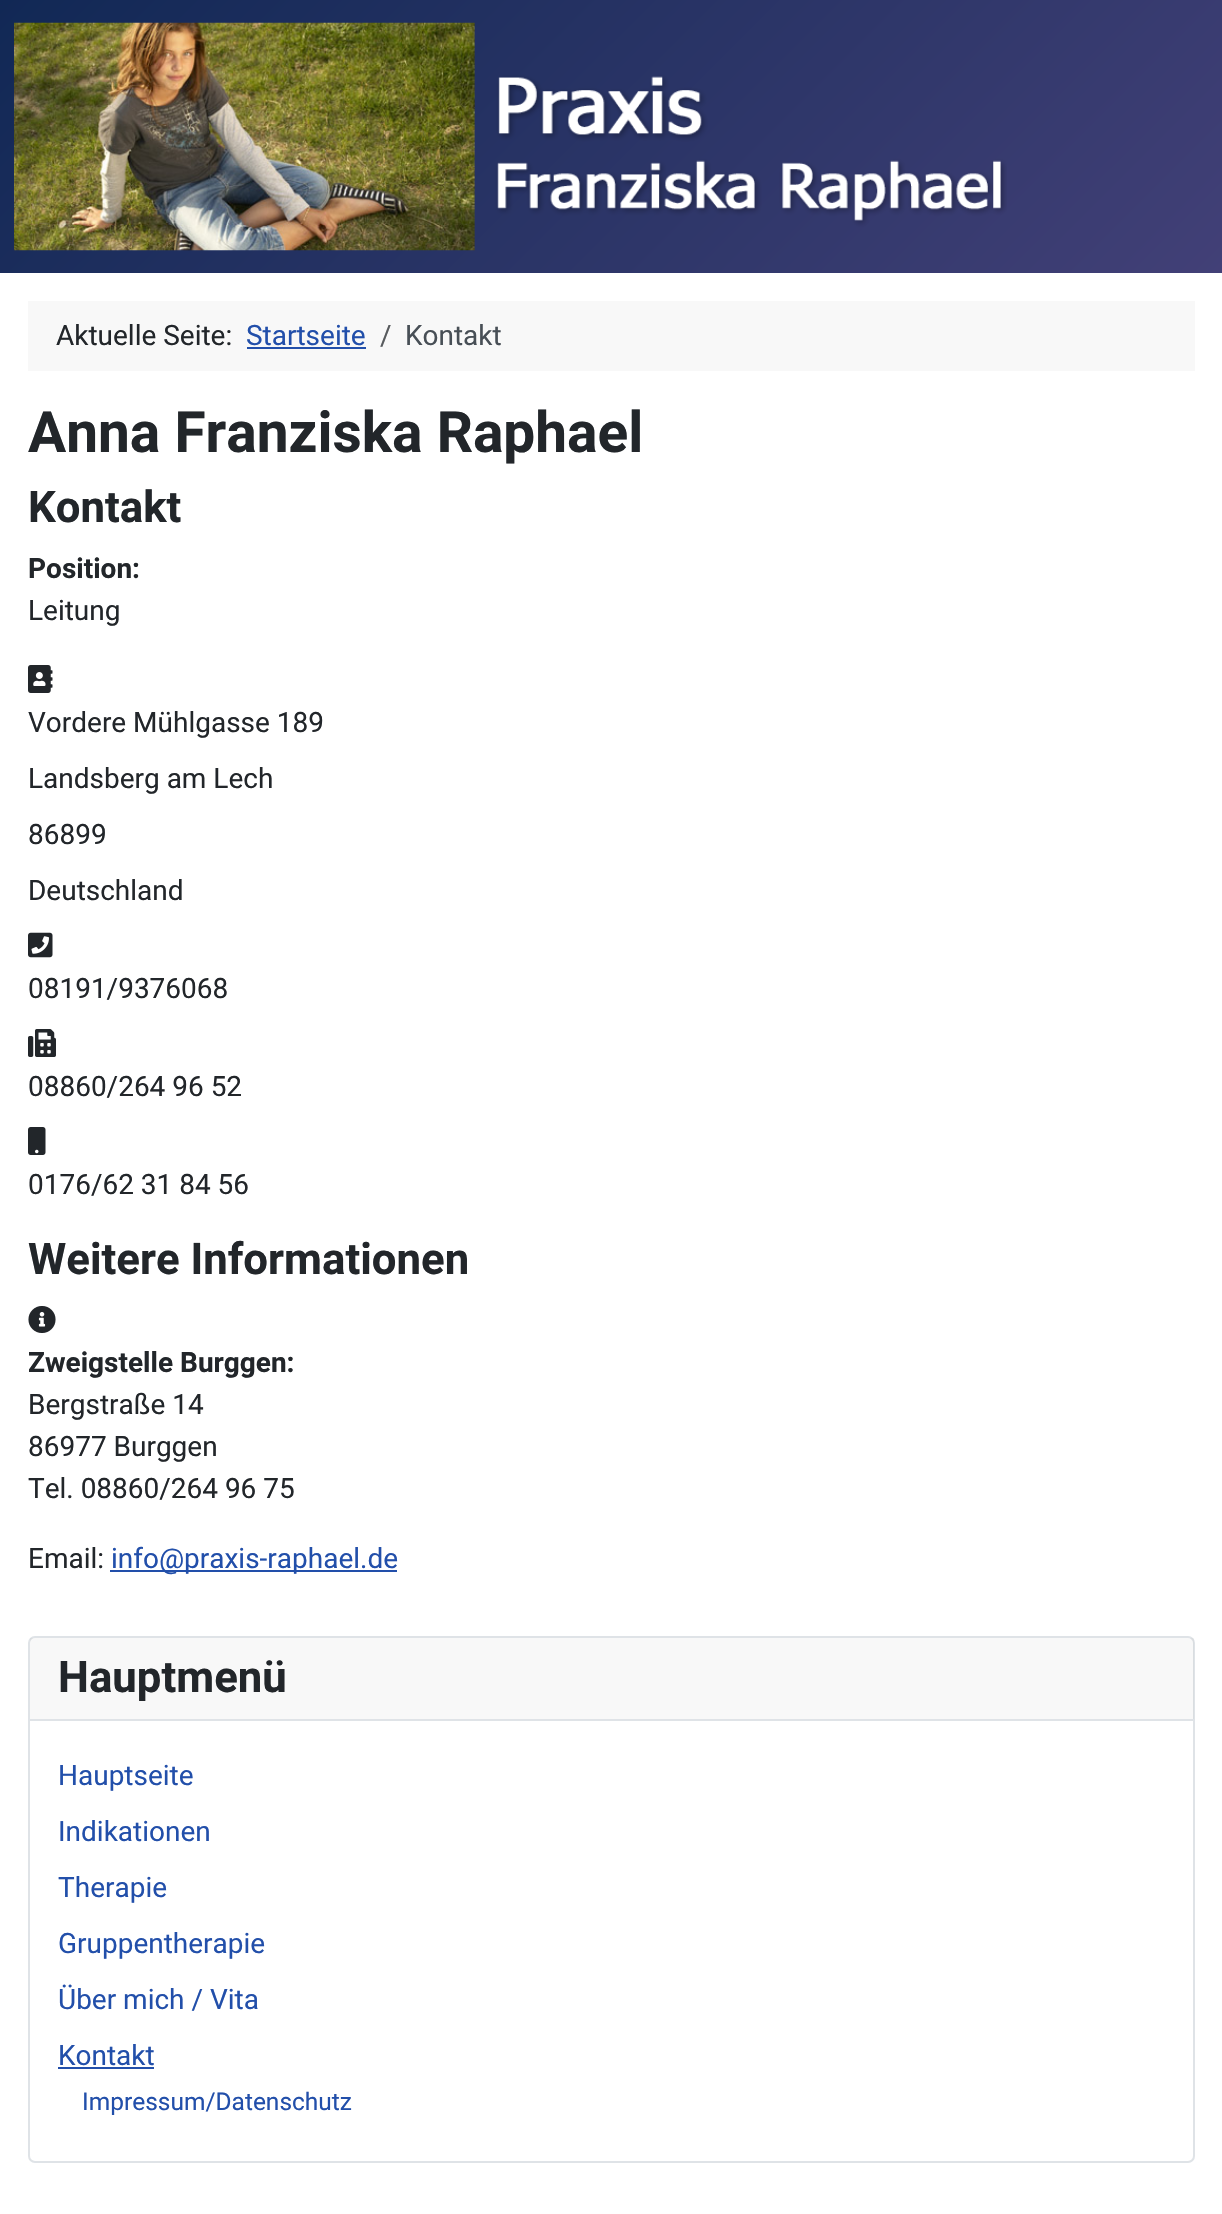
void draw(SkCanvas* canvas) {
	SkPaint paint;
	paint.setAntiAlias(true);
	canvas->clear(0xffffffff);
	{
		const SkColor colors[] = {0xff112855, 0xff424077};
		const float stops[] = {0, 1};
		const SkPoint ends[] = {{238, -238}, {986, 511}};
		paint.setShader(SkGradientShader::MakeLinear(ends, colors, stops, 2, SkTileMode::kClamp));
		paint.setAlpha(255);
	}
	canvas->drawRect(SkRect::MakeXYWH(0, 0, 1222, 273), paint);
	canvas->drawImageRect(SkImages::DeferredFromEncodedData(SkData::MakeFromFileName("img1.png")), SkRect::MakeXYWH(14, 22, 993, 229), SkSamplingOptions());
	paint.setShader(nullptr);
	paint.setColor(0xfff8f8f8);
	canvas->drawRect(SkRect::MakeXYWH(28, 301, 1167, 70), paint);
	SkFont f1(fontMgr->matchFamilyStyle("Roboto", SkFontStyle::Normal()), 28);
	f1.setSubpixel(true);
	paint.setColor(0xff22262a);
	canvas->drawString("Aktuelle Seite:", 56, 345, f1, paint);
	paint.setColor(0xff224faa);
	canvas->drawString("Startseite", 246, 345, f1, paint);
	canvas->drawRect(SkRect::MakeXYWH(247, 347, 119, 2), paint);
	paint.setColor(0xff585b5e);
	canvas->drawString("/", 380, 345, f1, paint);
	paint.setColor(0xff484f56);
	canvas->drawString("Kontakt", 405, 345, f1, paint);
	SkFont f2(fontMgr->matchFamilyStyle("Roboto", SkFontStyle::Bold()), 56.8);
	f2.setSubpixel(true);
	paint.setColor(0xff22262a);
	canvas->drawString("Anna Franziska Raphael", 28, 452, f2, paint);
	SkFont f3(fontMgr->matchFamilyStyle("Roboto", SkFontStyle::Bold()), 43.75);
	f3.setSubpixel(true);
	canvas->drawString("Kontakt", 28, 522, f3, paint);
	SkFont f4(fontMgr->matchFamilyStyle("Roboto", SkFontStyle::Bold()), 28);
	f4.setSubpixel(true);
	canvas->drawString("Position:", 28, 578, f4, paint);
	canvas->drawString("Leitung", 28, 620, f1, paint);
	canvas->drawImageRect(SkImages::DeferredFromEncodedData(SkData::MakeFromFileName("img2.png")), SkRect::MakeXYWH(28, 665, 25, 28), SkSamplingOptions());
	canvas->drawString("Vordere Mühlgasse 189", 28, 732, f1, paint);
	canvas->drawString("Landsberg am Lech", 28, 788, f1, paint);
	canvas->drawString("86899", 28, 844, f1, paint);
	canvas->drawString("Deutschland", 28, 900, f1, paint);
	canvas->drawImageRect(SkImages::DeferredFromEncodedData(SkData::MakeFromFileName("img3.png")), SkRect::MakeXYWH(28, 932, 25, 26), SkSamplingOptions());
	canvas->drawString("08191/9376068", 28, 998, f1, paint);
	canvas->drawImageRect(SkImages::DeferredFromEncodedData(SkData::MakeFromFileName("img4.png")), SkRect::MakeXYWH(28, 1029, 28, 28), SkSamplingOptions());
	canvas->drawString("08860/264 96 52", 28, 1096, f1, paint);
	canvas->drawImageRect(SkImages::DeferredFromEncodedData(SkData::MakeFromFileName("img5.png")), SkRect::MakeXYWH(28, 1127, 18, 28), SkSamplingOptions());
	canvas->drawString("0176/62 31 84 56", 28, 1194, f1, paint);
	canvas->drawString("Weitere Informationen", 28, 1274, f3, paint);
	canvas->drawImageRect(SkImages::DeferredFromEncodedData(SkData::MakeFromFileName("img6.png")), SkRect::MakeXYWH(28, 1306, 28, 27), SkSamplingOptions());
	canvas->drawString("Zweigstelle Burggen:", 28, 1372, f4, paint);
	canvas->drawString("Bergstraße 14", 28, 1414, f1, paint);
	canvas->drawString("86977 Burggen", 28, 1456, f1, paint);
	canvas->drawString("Tel. 08860/264 96 75", 28, 1498, f1, paint);
	canvas->drawString("Email:", 28, 1568, f1, paint);
	paint.setColor(0xff224faa);
	canvas->drawRect(SkRect::MakeXYWH(110, 1570, 287, 2), paint);
	canvas->drawString("info@praxis-raphael.de", 111, 1568, f1, paint);
	paint.setStroke(true);
	paint.setStrokeWidth(2);
	paint.setColor(0xffdfe3e7);
	canvas->drawRoundRect(SkRect::MakeXYWH(29, 1637, 1165, 525), 6, 6, paint);
	paint.setStroke(false);
	paint.setColor(0x0822262a);
	canvas->drawRect(SkRect::MakeXYWH(30, 1638, 1164, 81), paint);
	paint.setColor(0xffdfe3e7);
	canvas->drawRect(SkRect::MakeXYWH(30, 1719, 1164, 2), paint);
	paint.setColor(0xff22262a);
	canvas->drawString("Hauptmenü", 58, 1692, f3, paint);
	paint.setColor(0xff224faa);
	canvas->drawString("Hauptseite", 58, 1785, f1, paint);
	canvas->drawString("Indikationen", 58, 1841, f1, paint);
	canvas->drawString("Therapie", 58, 1897, f1, paint);
	canvas->drawString("Gruppentherapie", 58, 1953, f1, paint);
	canvas->drawString("Über mich / Vita", 58, 2009, f1, paint);
	canvas->drawString("Kontakt", 58, 2065, f1, paint);
	canvas->drawRect(SkRect::MakeXYWH(58, 2067, 96, 2), paint);
	SkFont f5(fontMgr->matchFamilyStyle("Roboto", SkFontStyle::Normal()), 24.5);
	f5.setSubpixel(true);
	canvas->drawString("Impressum/Datenschutz", 82, 2110, f5, paint);
}
